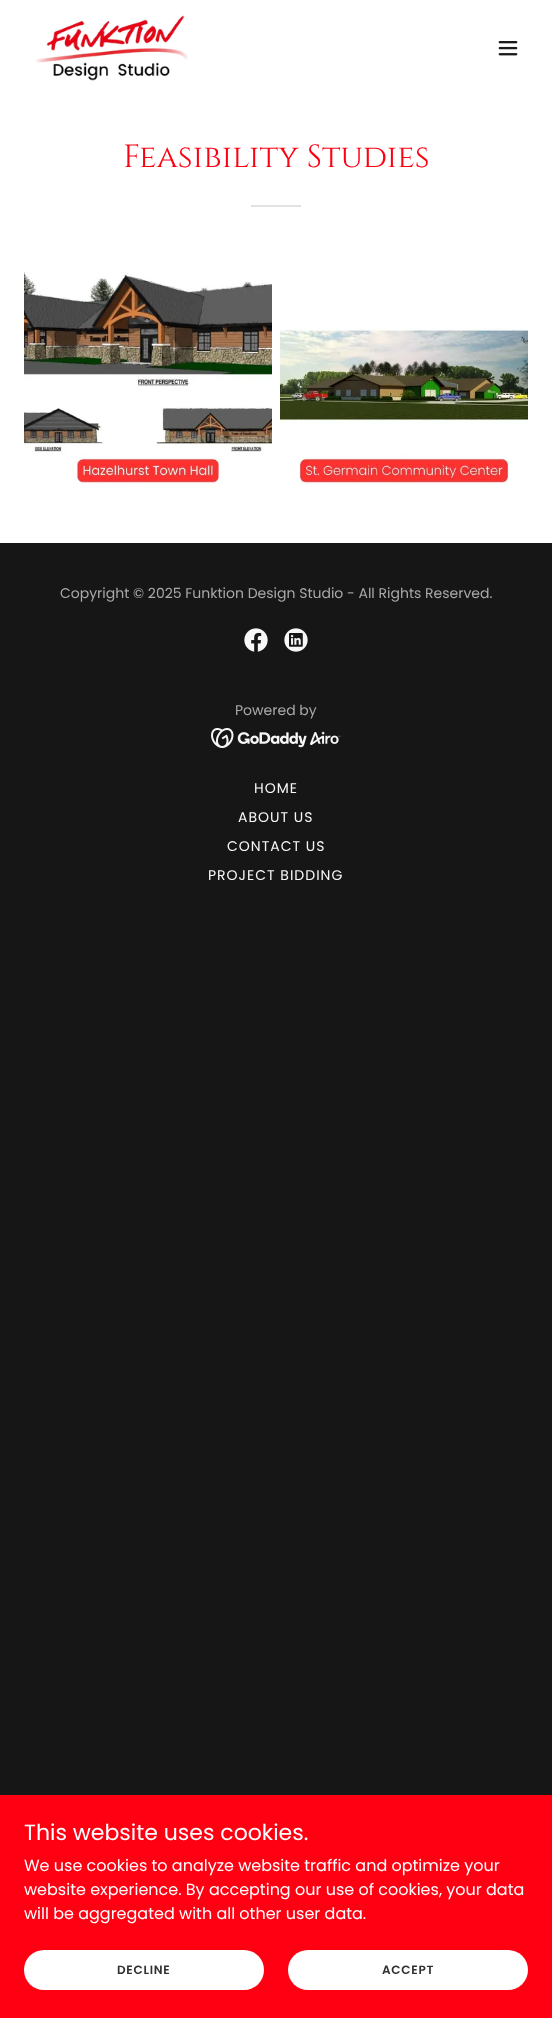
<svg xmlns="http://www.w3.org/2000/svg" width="552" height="2018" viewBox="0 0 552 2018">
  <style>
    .t1 { font: 32px Cinzel; fill: #ff0012; }
    .t2 { font: 14px Poppins; fill: #a9a9a9; }
    .t3 { font: 14px Poppins; letter-spacing: 1px; fill: #f7f7f7; }
    .t4 { font: 22px Poppins; fill: #fff; }
    .t5 { font: 16px Poppins; fill: #fff; }
    .t6 { font: 600 12px Poppins; letter-spacing: 0.75px; fill: #303030; }
  </style>
  <rect width="100%" height="100%" fill="#161616"/>
  <rect x="0" y="0" width="552" height="543" fill="#fff"/>
  <image x="35" y="15" width="153" height="66" href="images/1.png"/>
  <image x="498" y="41" width="20" height="15" href="images/2.png"/>
  <text x="123" y="167" class="t1">Feasibility Studies</text>
  <rect x="251" y="205" width="50" height="2" fill="#e2e2e2"/>
  <image x="24" y="271" width="248" height="216" href="images/3.png"/>
  <image x="280" y="327" width="248" height="159" href="images/4.png"/>
  <text x="60" y="598" class="t2">Copyright © 2025 Funktion Design Studio - All Rights Reserved.</text>
  <image x="244" y="628" width="24" height="24" href="images/5.png"/>
  <image x="284" y="628" width="24" height="24" href="images/6.png"/>
  <text x="235" y="715" class="t2">Powered by</text>
  <image x="211" y="728" width="130" height="20" href="images/7.png"/>
  <text x="254" y="793" class="t3">HOME</text>
  <text x="238" y="822" class="t3">ABOUT US</text>
  <text x="227" y="851" class="t3">CONTACT US</text>
  <text x="208" y="880" class="t3">PROJECT BIDDING</text>
  <rect x="0" y="1795" width="552" height="223" fill="#ff0012"/>
  <text x="24" y="1840" class="t4">This website uses cookies.</text>
  <text x="24" y="1871" class="t5">We use cookies to analyze website traffic and optimize your</text>
  <text x="24" y="1895" class="t5">website experience. By accepting our use of cookies, your data</text>
  <text x="24" y="1919" class="t5">will be aggregated with all other user data.</text>
  <rect x="24" y="1950" width="240" height="40" rx="20" fill="#fff"/>
  <text x="117" y="1974" class="t6">DECLINE</text>
  <rect x="288" y="1950" width="240" height="40" rx="20" fill="#fff"/>
  <text x="382" y="1974" class="t6">ACCEPT</text>
</svg>
